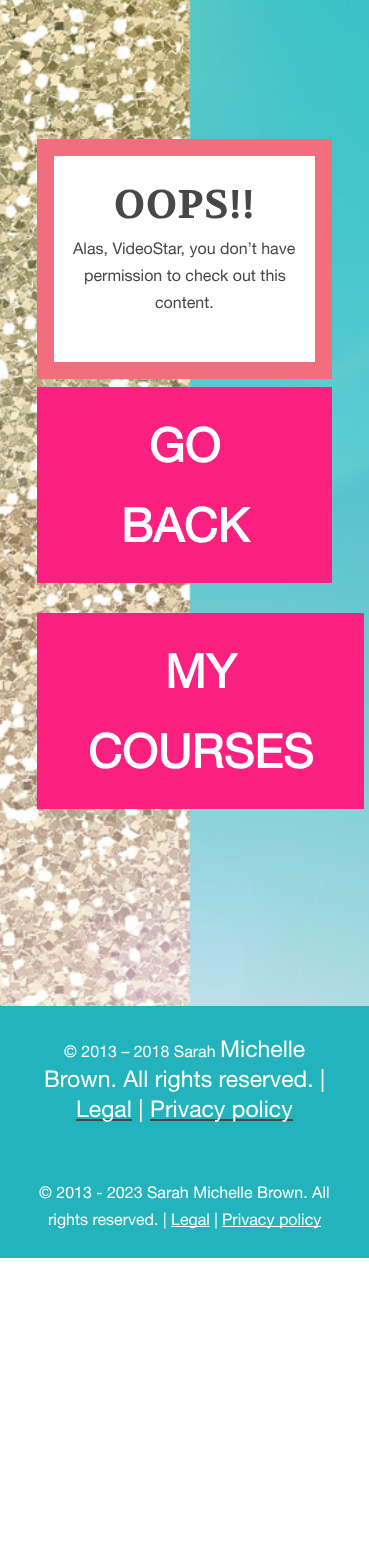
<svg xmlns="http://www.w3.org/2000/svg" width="369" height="1558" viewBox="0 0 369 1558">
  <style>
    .t1 { font: bold 40px Volkhov; letter-spacing: 1px; fill: #474747; }
    .t2 { font: 16px Helvetica Neue; fill: #474747; }
    .t3 { font: bold 47px Helvetica Neue; fill: #fff; }
    .t4 { font: 16px Helvetica Neue; fill: #fff; }
    .t5 { font: 23px Helvetica Neue; fill: #fff; }
  </style>
  <rect width="100%" height="100%" fill="#fff"/>
  <image x="0" y="0" width="369" height="1006" href="images/1.png"/>
  <rect x="45.5" y="147.5" width="278" height="223" fill="#fff" stroke="#f26d7d" stroke-width="17"/>
  <text x="114" y="218" class="t1">OOPS!!</text>
  <text x="73" y="254" class="t2">Alas, VideoStar, you don’t have</text>
  <text x="84" y="281" class="t2">permission to check out this</text>
  <text x="155" y="308" class="t2">content.</text>
  <rect x="37" y="387" width="295" height="196" fill="#fa207f"/>
  <text x="149" y="462" class="t3">GO</text>
  <text x="121" y="542" class="t3">BACK</text>
  <rect x="37" y="613" width="327" height="196" fill="#fa207f"/>
  <text x="165" y="688" class="t3">MY</text>
  <text x="88" y="768" class="t3">COURSES</text>
  <rect x="0" y="1006" width="369" height="252" fill="#22b3bd"/>
  <text x="64" y="1057" class="t4">© 2013 – 2018 Sarah</text>
  <text x="220" y="1057" class="t5">Michelle</text>
  <text x="44" y="1087" class="t5">Brown. All rights reserved. |</text>
  <rect x="76" y="1119" width="56" height="2" fill="#474747"/>
  <text x="76" y="1117" class="t5">Legal |</text>
  <rect x="150" y="1119" width="143" height="2" fill="#474747"/>
  <text x="150" y="1117" class="t5">Privacy policy</text>
  <text x="39" y="1198" class="t4">© 2013 - 2023 Sarah Michelle Brown. All</text>
  <text x="48" y="1225" class="t4">rights reserved. |</text>
  <rect x="171" y="1226" width="39" height="1" fill="#fff"/>
  <text x="171" y="1225" class="t4">Legal |</text>
  <rect x="222" y="1226" width="99" height="1" fill="#fff"/>
  <text x="222" y="1225" class="t4">Privacy policy</text>
</svg>
